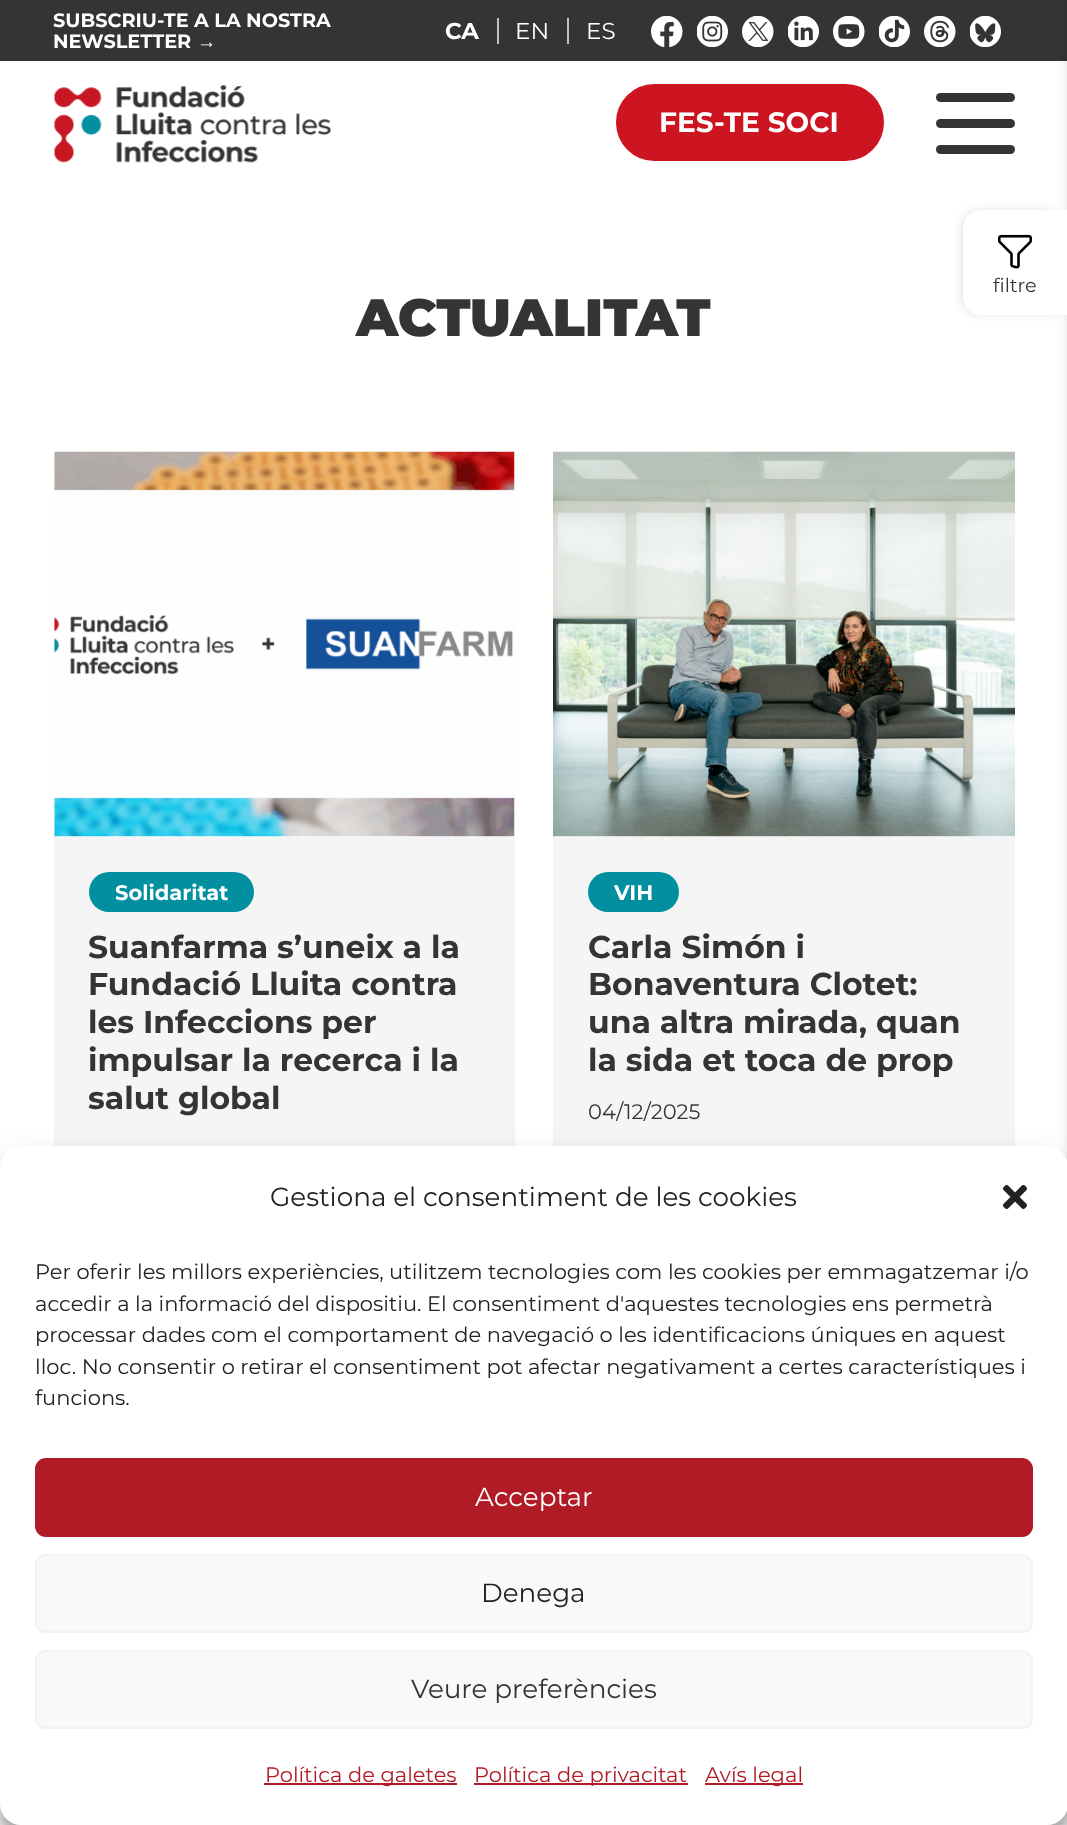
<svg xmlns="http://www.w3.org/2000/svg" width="1067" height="1825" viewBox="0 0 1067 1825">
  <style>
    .t1 { font: bold 19.25px Montserrat; fill: #fff; }
    .t2 { font: bold 19.25px Liberation Sans; fill: #fff; }
    .t3 { font: bold 23px Montserrat; fill: #fff; }
    .t4 { font: 100 23px Montserrat; fill: #fff; }
    .t5 { font: bold 28px Montserrat; fill: #fff; }
    .t6 { font: 100 19.25px Montserrat; fill: #343434; }
    .t7 { font: 900 52.5px Montserrat; fill: #343434; }
    .t8 { font: bold 21px Montserrat; fill: #fff; }
    .t9 { font: bold 31.5px Montserrat; fill: #343434; }
    .t10 { font: 100 21px Montserrat; fill: #343434; }
    .t11 { font: 100 26.25px Montserrat; fill: #222; }
    .t12 { font: 100 21px Montserrat; fill: #222; }
    .t13 { font: 100 26.25px Montserrat; fill: #fff; }
    .t14 { font: 100 26.25px Montserrat; fill: #343434; }
    .t15 { font: 100 21px Montserrat; fill: #b01b26; }
  </style>
  <rect width="100%" height="100%" fill="#fff"/>
  <rect x="0" y="0" width="1067" height="61" fill="#343434"/>
  <text x="53" y="27" class="t1">SUBSCRIU-TE A LA NOSTRA</text>
  <text x="53" y="48" class="t1">NEWSLETTER</text>
  <text x="197" y="48" class="t2">→</text>
  <text x="445" y="39" class="t3">CA</text>
  <rect x="497" y="18" width="2" height="26" fill="#c2c2c2"/>
  <text x="515" y="39" class="t4">EN</text>
  <rect x="567" y="18" width="2" height="26" fill="#c2c2c2"/>
  <text x="586" y="39" class="t4">ES</text>
  <image x="651" y="16" width="32" height="31" href="images/1.png"/>
  <image x="697" y="16" width="31" height="31" href="images/2.png"/>
  <image x="742" y="16" width="32" height="31" href="images/3.png"/>
  <image x="788" y="16" width="31" height="31" href="images/4.png"/>
  <image x="833" y="16" width="32" height="31" href="images/5.png"/>
  <image x="879" y="16" width="31" height="31" href="images/6.png"/>
  <image x="924" y="16" width="32" height="31" href="images/7.png"/>
  <image x="970" y="16" width="31" height="31" href="images/8.png"/>
  <image x="54" y="85" width="277" height="78" href="images/9.png"/>
  <rect x="618.5" y="86.5" width="263" height="72" rx="36" fill="#cd1421" stroke="#cd1421" stroke-width="5"/>
  <text x="659" y="132" class="t5">FES-TE SOCI</text>
  <rect x="936" y="93" width="79" height="9" rx="4.5" fill="#343434"/>
  <rect x="936" y="119" width="79" height="9" rx="4.5" fill="#343434"/>
  <rect x="936" y="145" width="79" height="9" rx="4.5" fill="#343434"/>
  <rect x="1066" y="0" width="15" height="1825" fill="#0000001a" filter="blur(4.5px)"/>
  <rect x="961" y="210" width="105" height="105" rx="18" fill="#0000001a" filter="blur(4.5px)"/>
  <path d="M981 210H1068V315H981C971 315 963 307 963 297V228C963 218 971 210 981 210Z" fill="#fff"/>
  <image x="997" y="234" width="36" height="35" href="images/10.png"/>
  <text x="993" y="292" class="t6">filtre</text>
  <text x="356" y="336" class="t7">ACTUALITAT</text>
  <image x="54" y="451" width="461" height="386" href="images/11.png"/>
  <rect x="54" y="837" width="461" height="309" fill="#f5f5f5"/>
  <rect x="89" y="872" width="165" height="40" rx="20" fill="#0290a1"/>
  <text x="115" y="900" class="t8">Solidaritat</text>
  <text x="88" y="958" class="t9">Suanfarma s’uneix a la</text>
  <text x="88" y="995" class="t9">Fundació Lluita contra</text>
  <text x="88" y="1033" class="t9">les Infeccions per</text>
  <text x="88" y="1071" class="t9">impulsar la recerca i la</text>
  <text x="88" y="1109" class="t9">salut global</text>
  <image x="553" y="451" width="462" height="386" href="images/12.png"/>
  <rect x="553" y="837" width="462" height="309" fill="#f5f5f5"/>
  <rect x="588" y="872" width="91" height="40" rx="20" fill="#0290a1"/>
  <text x="614" y="900" class="t8">VIH</text>
  <text x="588" y="958" class="t9">Carla Simón i</text>
  <text x="588" y="995" class="t9">Bonaventura Clotet:</text>
  <text x="588" y="1033" class="t9">una altra mirada, quan</text>
  <text x="588" y="1071" class="t9">la sida et toca de prop</text>
  <text x="588" y="1119" class="t10">04/12/2025</text>
  <rect x="0" y="1157" width="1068" height="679" rx="21" fill="#0000003b" filter="blur(5px)"/>
  <rect x="0" y="1164" width="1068" height="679" rx="21" fill="#00000030" filter="blur(17.5px)"/>
  <rect x="0" y="1146" width="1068" height="679" rx="21" fill="#fff"/>
  <text x="270" y="1206" class="t11">Gestiona el consentiment de les cookies</text>
  <image x="1003" y="1185" width="24" height="24" href="images/13.png"/>
  <text x="35" y="1279" class="t12">Per oferir les millors experiències, utilitzem tecnologies com les cookies per emmagatzemar i/o</text>
  <text x="35" y="1311" class="t12">accedir a la informació del dispositiu. El consentiment d'aquestes tecnologies ens permetrà</text>
  <text x="35" y="1342" class="t12">processar dades com el comportament de navegació o les identificacions úniques en aquest</text>
  <text x="35" y="1374" class="t12">lloc. No consentir o retirar el consentiment pot afectar negativament a certes característiques i</text>
  <text x="35" y="1405" class="t12">funcions.</text>
  <rect x="36" y="1459" width="996" height="77" rx="10" fill="#b01b26" stroke="#b01b26" stroke-width="2"/>
  <text x="475" y="1506" class="t13">Acceptar</text>
  <rect x="36" y="1555" width="996" height="77" rx="10" fill="#f9f9f9" stroke="#f2f2f2" stroke-width="2"/>
  <text x="481" y="1602" class="t11">Denega</text>
  <rect x="36" y="1651" width="996" height="77" rx="10" fill="#f9f9f9" stroke="#f2f2f2" stroke-width="2"/>
  <text x="411" y="1698" class="t14">Veure preferències</text>
  <rect x="264" y="1783" width="193" height="2" fill="#b01b26"/>
  <text x="265" y="1782" class="t15">Política de galetes</text>
  <rect x="474" y="1783" width="214" height="2" fill="#b01b26"/>
  <text x="474" y="1782" class="t15">Política de privacitat</text>
  <rect x="705" y="1783" width="98" height="2" fill="#b01b26"/>
  <text x="705" y="1782" class="t15">Avís legal</text>
</svg>
